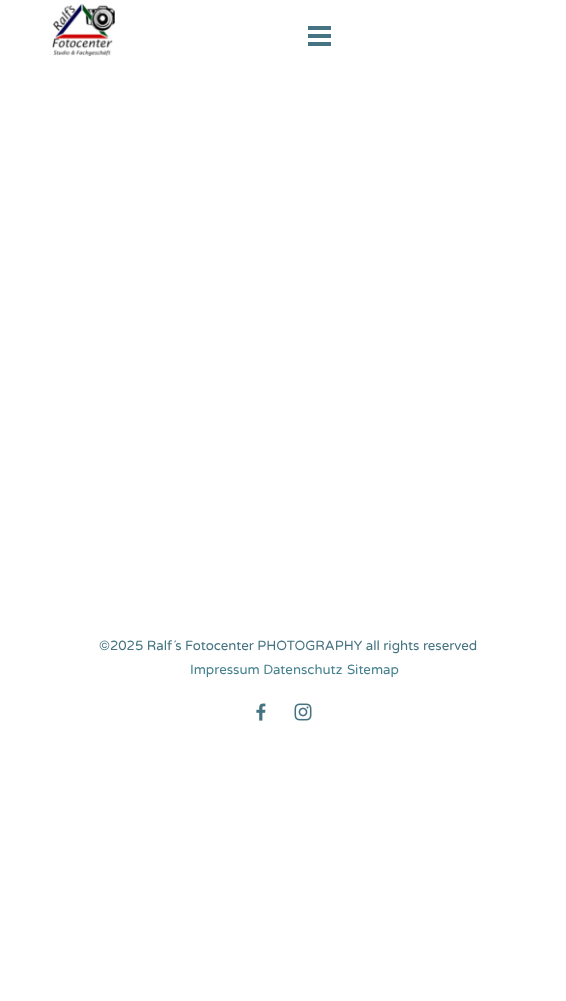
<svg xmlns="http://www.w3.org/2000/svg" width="566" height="1001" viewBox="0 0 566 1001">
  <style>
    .t1 { font: 13.3px Varela Round; fill: #457381; }
    .t2 { font: 13.3px Varela Round; fill: #45818e; }
  </style>
  <rect width="100%" height="100%" fill="#fff"/>
  <image x="52" y="3" width="63" height="53" href="images/1.png"/>
  <rect x="308" y="26" width="23" height="4" fill="#457381"/>
  <rect x="308" y="34" width="23" height="4" fill="#457381"/>
  <rect x="308" y="42" width="23" height="4" fill="#457381"/>
  <text x="99" y="650" class="t1">©2025 Ralf´s Fotocenter PHOTOGRAPHY all rights reserved</text>
  <text x="190" y="674" class="t2">Impressum Datenschutz</text>
  <text x="347" y="674" class="t2">Sitemap</text>
  <image x="256" y="703" width="10" height="18" href="images/2.png"/>
  <image x="294" y="703" width="18" height="18" href="images/3.png"/>
</svg>
